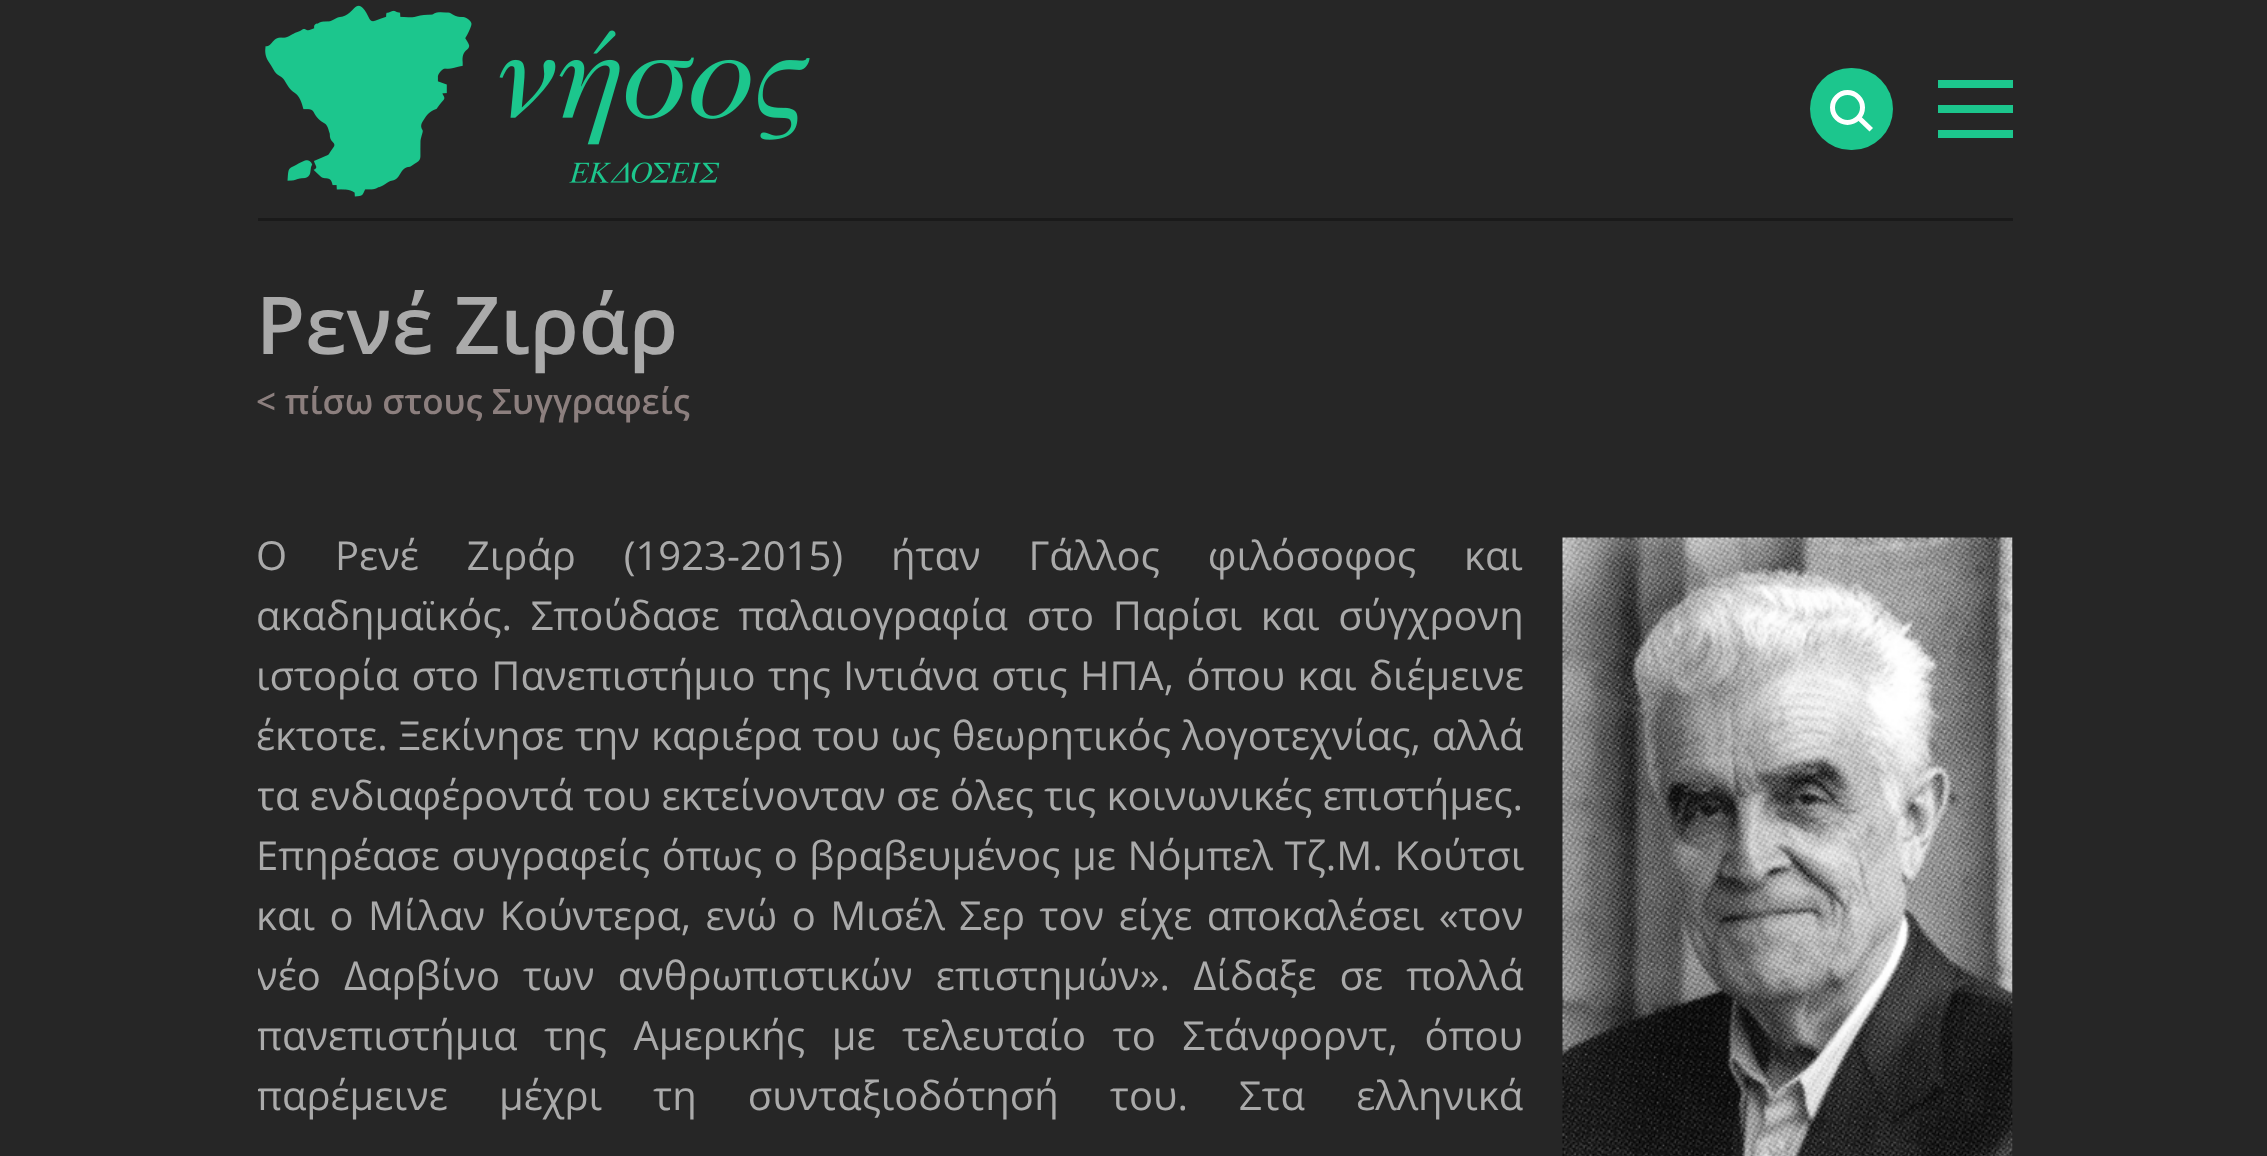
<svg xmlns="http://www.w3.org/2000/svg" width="2267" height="1156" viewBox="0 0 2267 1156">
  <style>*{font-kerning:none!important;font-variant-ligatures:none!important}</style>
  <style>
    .t1 { font: 600 80px Open Sans; fill: #aaa; }
    .t2 { font: 600 35px Open Sans; fill: #8c7f7e; }
    .t3 { font: 40px Open Sans; fill: #aaa; }
  </style>
  <defs>
    <clipPath id="clip1"><rect x="258" y="485" width="1755" height="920"/></clipPath>
  </defs>
  <rect width="100%" height="100%" fill="#262626"/>
  <rect x="258" y="218" width="1755" height="3" fill="#1a1a1a"/>
  <image x="265" y="5" width="545" height="192" href="images/1.png"/>
  <rect x="1810" y="68" width="83" height="82" rx="41" fill="#1cc68d"/>
  <path d="M1860.5 116L1873 128L1869.5 131.5L1857 119.5Z" fill="#fff"/>
  <circle cx="1847.5" cy="107.5" r="15" fill="none" stroke="#fff" stroke-width="5"/>
  <rect x="1938" y="130" width="75" height="8" fill="#1cc68d"/>
  <rect x="1938" y="105" width="75" height="8" fill="#1cc68d"/>
  <rect x="1938" y="80" width="75" height="8" fill="#1cc68d"/>
  <text x="256" y="354" class="t1">Ρενέ Ζιράρ</text>
  <text x="256" y="414" class="t2">&lt; πίσω στους Συγγραφείς</text>
  <text x="256" y="570" word-spacing="37.5" class="t3">Ο Ρενέ Ζιράρ (1923-2015) ήταν Γάλλος φιλόσοφος και</text>
  <image x="1562" y="537" width="451" height="619" href="images/2.png"/>
  <text x="256" y="630" word-spacing="8.25" class="t3">ακαδημαϊκός. Σπούδασε παλαιογραφία στο Παρίσι και σύγχρονη</text>
  <text x="256" y="690" word-spacing="2" class="t3">ιστορία στο Πανεπιστήμιο της Ιντιάνα στις ΗΠΑ, όπου και διέμεινε</text>
  <text x="256" y="750" word-spacing="0.5" class="t3">έκτοτε. Ξεκίνησε την καριέρα του ως θεωρητικός λογοτεχνίας, αλλά</text>
  <g clip-path="url(#clip1)">
    <text x="256" y="810" class="t3">τα ενδιαφέροντά του εκτείνονταν σε όλες τις κοινωνικές επιστήμες.</text>
  </g>
  <text x="256" y="870" word-spacing="1.25" class="t3">Επηρέασε συγραφείς όπως ο βραβευμένος με Νόμπελ Τζ.Μ. Κούτσι</text>
  <text x="256" y="930" word-spacing="4.1" class="t3">και ο Μίλαν Κούντερα, ενώ ο Μισέλ Σερ τον είχε αποκαλέσει «τον</text>
  <g clip-path="url(#clip1)">
    <text x="256" y="990" word-spacing="12.75" class="t3">νέο Δαρβίνο των ανθρωπιστικών επιστημών». Δίδαξε σε πολλά</text>
    <text x="256" y="1050" word-spacing="16.25" class="t3">πανεπιστήμια της Αμερικής με τελευταίο το Στάνφορντ, όπου</text>
    <text x="256" y="1110" word-spacing="40.75" class="t3">παρέμεινε μέχρι τη συνταξιοδότησή του. Στα ελληνικά</text>
  </g>
</svg>
